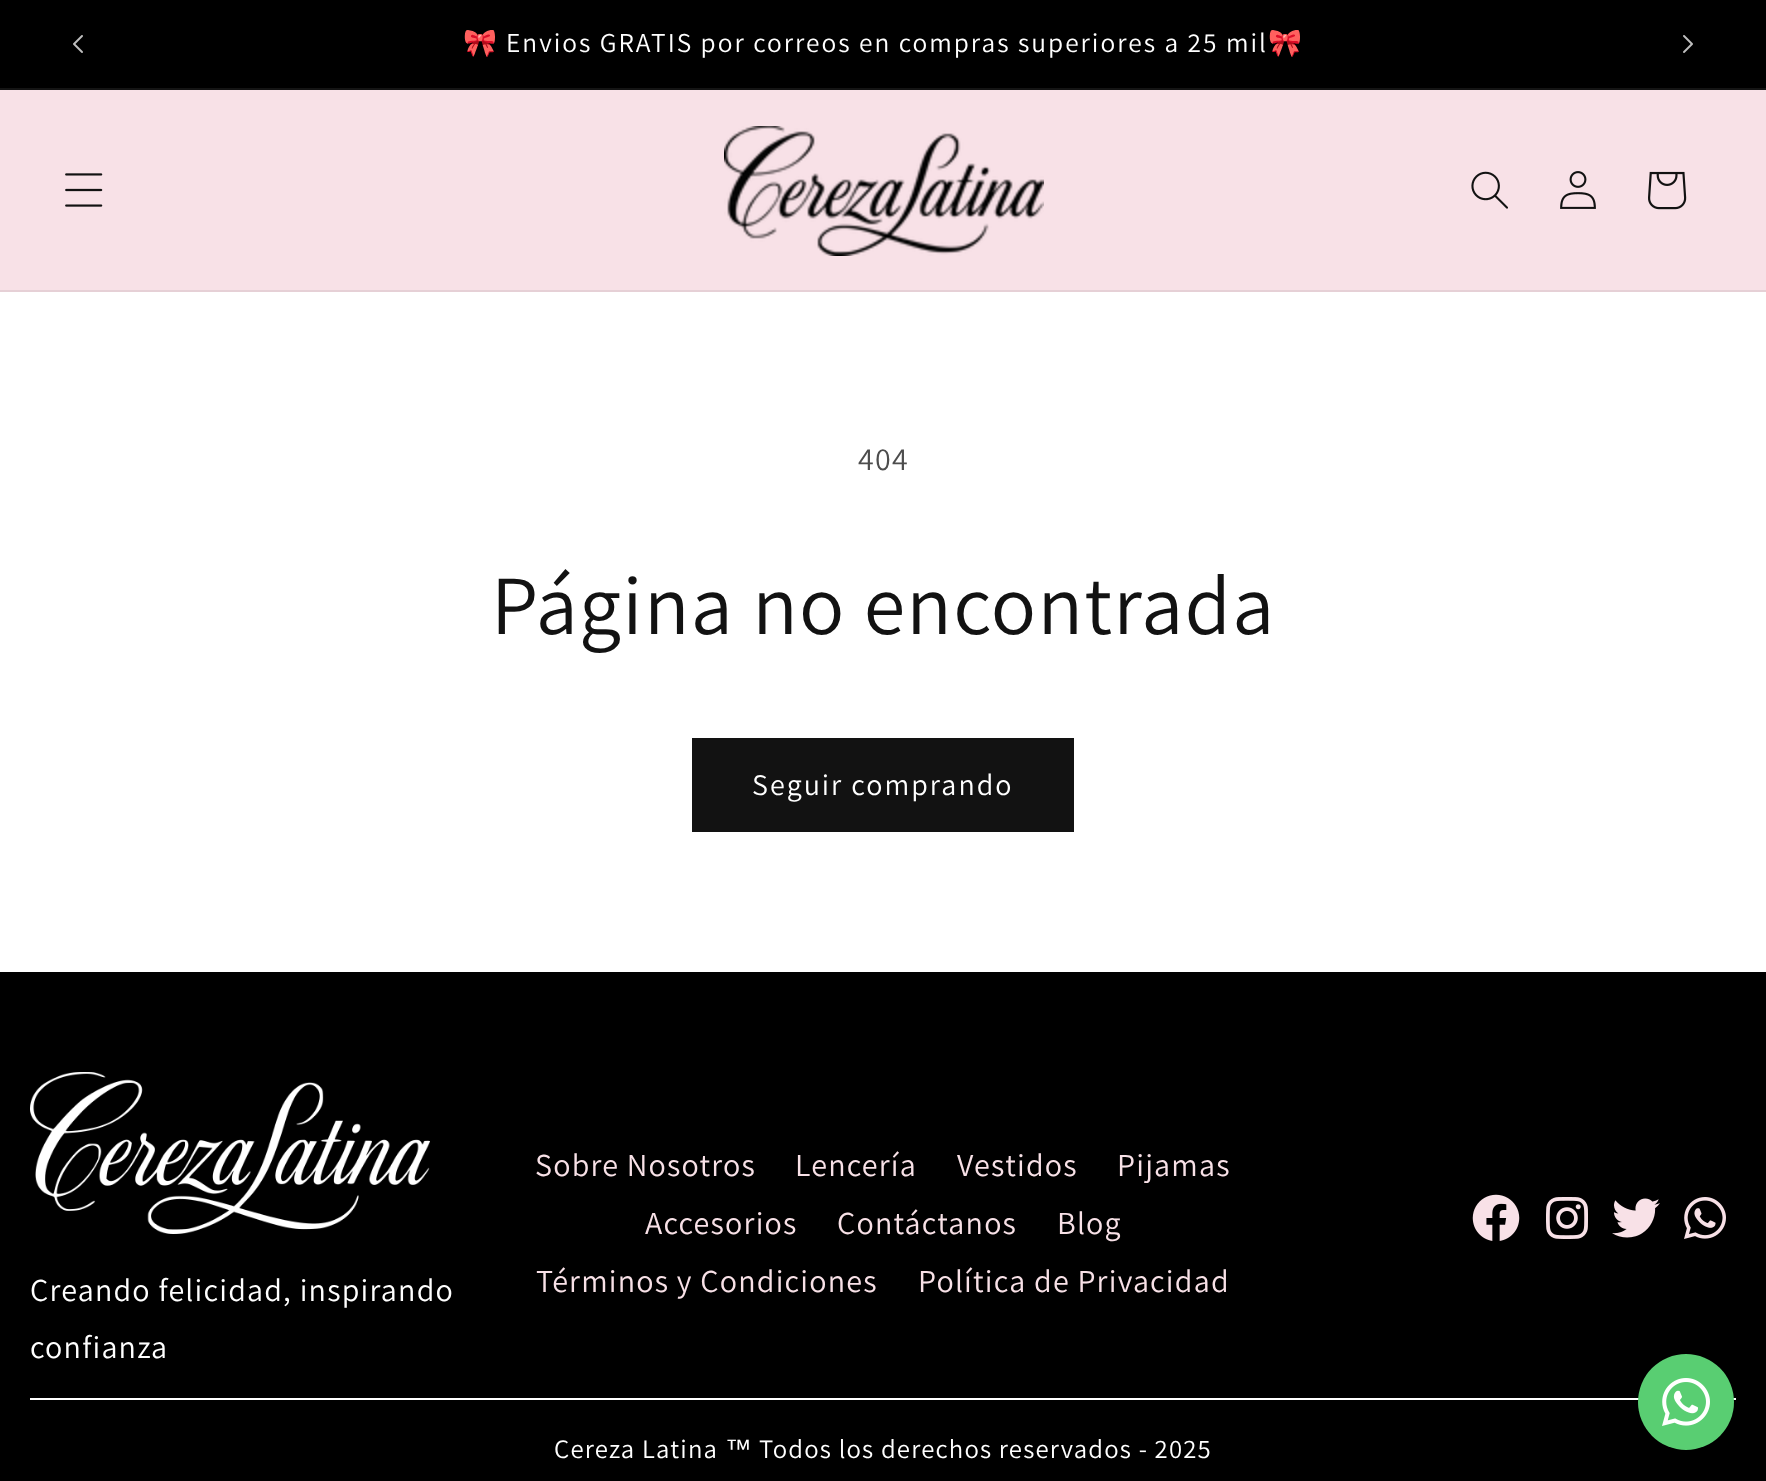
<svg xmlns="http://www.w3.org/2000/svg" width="1766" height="1481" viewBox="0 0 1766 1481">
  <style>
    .t1 { font: 27.3px Noto Color Emoji; letter-spacing: 2px; fill: #fff; }
    .t2 { font: 27.3px Assistant; letter-spacing: 2px; fill: #fff; }
    .t3 { font: 32px Assistant; letter-spacing: 1.2px; fill: #4d4d4d; }
    .t4 { font: 84px Assistant; letter-spacing: 1.25px; fill: #121212; }
    .t5 { font: 30px Assistant; letter-spacing: 2px; fill: #fff; }
    .t6 { font: 32px Assistant; letter-spacing: 1.2px; fill: #f8e1e7; }
    .t7 { font: 32px Assistant; letter-spacing: 1.2px; fill: #fff; }
    .t8 { font: 26.7px Assistant; letter-spacing: 1.2px; fill: #fff; }
    .t9 { font: 26.7px Liberation Sans; letter-spacing: 1.2px; fill: #fff; }
  </style>
  <rect width="100%" height="100%" fill="#fff"/>
  <rect x="0" y="0" width="1766" height="88" fill="#000"/>
  <rect x="0" y="88" width="1766" height="2" fill="#141414"/>
  <image x="73" y="35" width="10" height="18" href="images/1.png"/>
  <text x="463" y="52" class="t1">🎀</text>
  <text x="506" y="52" class="t2">Envios GRATIS por correos en compras superiores a 25 mil</text>
  <text x="1268" y="52" class="t1">🎀</text>
  <image x="1683" y="35" width="10" height="18" href="images/2.png"/>
  <rect x="0" y="90" width="1766" height="200" fill="#f8e1e7"/>
  <rect x="0" y="290" width="1766" height="2" fill="#e6d0d6"/>
  <image x="65" y="173" width="38" height="34" href="images/3.png"/>
  <image x="724" y="126" width="320" height="130" href="images/4.png"/>
  <image x="1471" y="171" width="37" height="38" href="images/5.png"/>
  <image x="1560" y="171" width="36" height="38" href="images/6.png"/>
  <image x="1648" y="171" width="39" height="39" href="images/7.png"/>
  <text x="858" y="470" class="t3">404</text>
  <text x="491" y="634" class="t4">Página no encontrada</text>
  <rect x="692" y="738" width="382" height="94" fill="#121212"/>
  <text x="752" y="795" class="t5">Seguir comprando</text>
  <rect x="0" y="972" width="1766" height="509" fill="#000"/>
  <text x="535" y="1176" class="t6">Sobre Nosotros</text>
  <text x="795" y="1176" class="t6">Lencería</text>
  <text x="957" y="1176" class="t6">Vestidos</text>
  <text x="1117" y="1176" class="t6">Pijamas</text>
  <text x="645" y="1234" class="t6">Accesorios</text>
  <text x="837" y="1234" class="t6">Contáctanos</text>
  <text x="1057" y="1234" class="t6">Blog</text>
  <text x="536" y="1292" class="t6">Términos y Condiciones</text>
  <text x="918" y="1292" class="t6">Política de Privacidad</text>
  <image x="1472" y="1194" width="48" height="47" href="images/8.png"/>
  <image x="1546" y="1197" width="42" height="42" href="images/9.png"/>
  <image x="1612" y="1198" width="48" height="40" href="images/10.png"/>
  <image x="1684" y="1197" width="42" height="42" href="images/11.png"/>
  <image x="30" y="1072" width="400" height="162" href="images/12.png"/>
  <text x="30" y="1301" class="t7">Creando felicidad, inspirando</text>
  <text x="30" y="1358" class="t7">confianza</text>
  <rect x="30" y="1398" width="1706" height="2" fill="#fff"/>
  <text x="554" y="1458" class="t8">Cereza Latina</text>
  <text x="725" y="1458" class="t9">™</text>
  <text x="759" y="1458" class="t8">Todos los derechos reservados - 2025</text>
  <circle cx="1686" cy="1402" r="48" fill="#59ce72"/>
  <image x="1662" y="1378" width="48" height="48" href="images/13.png"/>
</svg>
